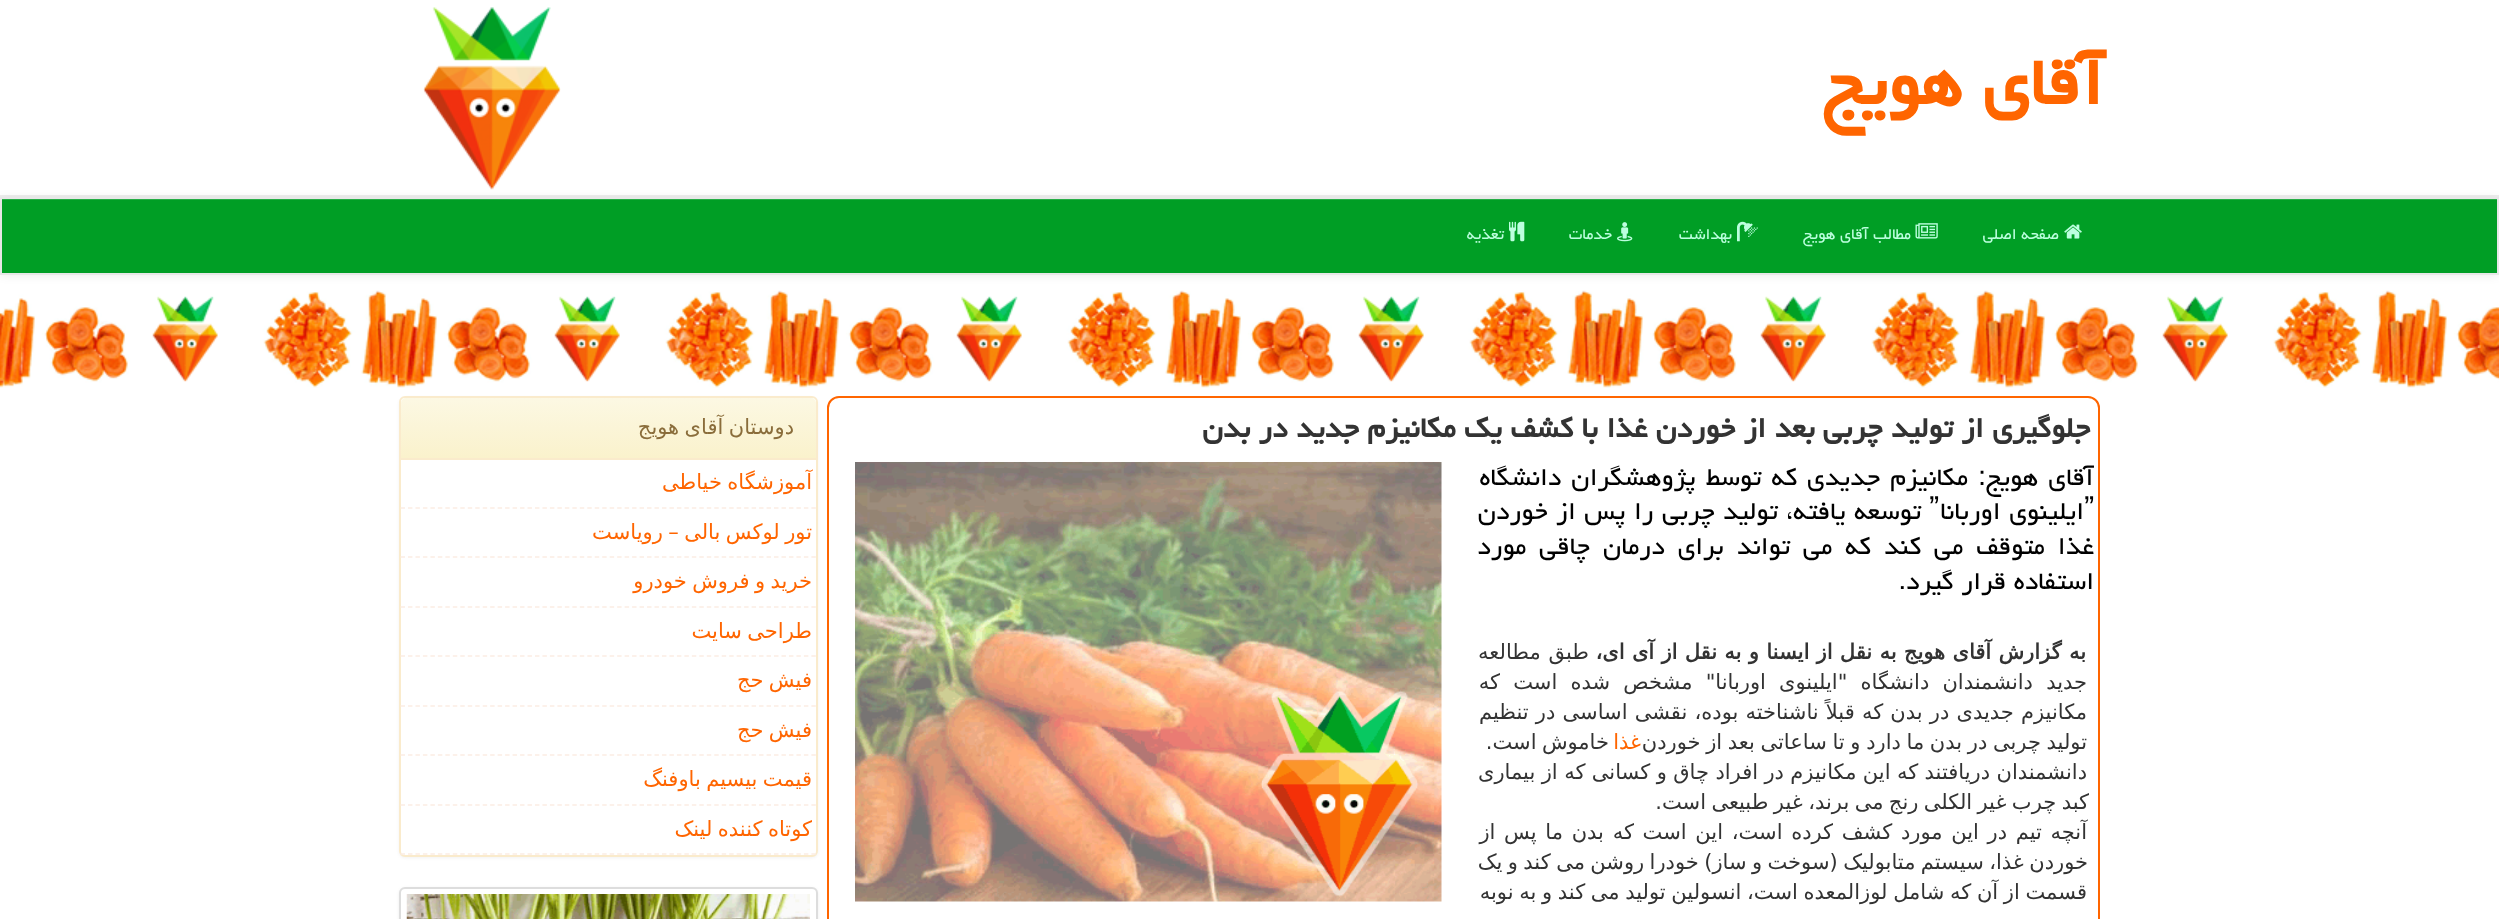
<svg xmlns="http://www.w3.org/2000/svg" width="2499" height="919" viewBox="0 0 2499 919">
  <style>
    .t1 { font: bold 84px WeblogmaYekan; direction: rtl; fill: #ff6500; }
    .t2 { font: 19.5px WeblogmaYekan; direction: rtl; fill: #bcffdf; }
    .t3 { font: bold 35.7px WeblogmaYekan; direction: rtl; fill: #333; }
    .t4 { font: 31.5px WeblogmaYekan; direction: rtl; fill: #000; }
    .t5 { font: 31.5px Liberation Sans; fill: #000; }
    .t6 { font: bold 21px DejaVu Sans; direction: rtl; fill: #333; }
    .t7 { font: 21px DejaVu Sans; direction: rtl; fill: #333; }
    .t8 { font: 21px DejaVu Sans; direction: rtl; fill: #ff6500; }
    .t9 { font: 21px DejaVu Sans; direction: rtl; fill: #8a6d3b; }
  </style>
  <defs>
    <linearGradient id="g1" gradientUnits="userSpaceOnUse" x1="608" y1="398" x2="608" y2="458"><stop offset="0" stop-color="#fcf8e3"/><stop offset="1" stop-color="#faf2cc"/></linearGradient>
  </defs>
  <rect width="100%" height="100%" fill="#fff"/>
  <rect x="0" y="195" width="2499" height="2" fill="#eee"/>
  <text x="2104" y="104" class="t1">آقای هویج</text>
  <image x="423" y="7" width="138" height="183" href="images/1.png"/>
  <rect x="0" y="198" width="2499" height="78" fill="#00000012" filter="blur(4px)"/>
  <rect x="2" y="200" width="2495" height="73" fill="#009e25"/>
  <rect x="2" y="199" width="2496" height="1" fill="#26ad46"/>
  <rect x="1" y="198" width="2497" height="76" fill="none" stroke="#e7e7e7" stroke-width="2"/>
  <image x="2064" y="224" width="18" height="15" href="images/2.png"/>
  <text x="2059" y="239" class="t2">صفحه اصلی</text>
  <image x="1915" y="223" width="23" height="16" href="images/3.png"/>
  <text x="1911" y="239" class="t2">مطالب آقای هویج</text>
  <image x="1737" y="221" width="21" height="21" href="images/4.png"/>
  <text x="1732" y="239" class="t2">بهداشت</text>
  <image x="1617" y="222" width="16" height="20" href="images/5.png"/>
  <text x="1612" y="239" class="t2">خدمات</text>
  <image x="1509" y="221" width="16" height="21" href="images/6.png"/>
  <text x="1504" y="239" class="t2">تغذیه</text>
  <image x="0" y="290" width="2499" height="98" href="images/7.png"/>
  <rect x="828" y="397" width="1271" height="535" rx="11" fill="none" stroke="#ff6500" stroke-width="2"/>
  <text x="2090" y="437" class="t3">جلوگیری از تولید چربی بعد از خوردن غذا با كشف یك مكانیزم جدید در بدن</text>
  <text x="2094" y="485" word-spacing="2.5" class="t4">آقای هویج: مكانیزم جدیدی كه توسط پژوهشگران دانشگاه</text>
  <image x="855" y="462" width="587" height="440" href="images/8.png"/>
  <text x="2084" y="519" class="t5">ˮ</text>
  <text x="1929" y="519" class="t5">ˮ</text>
  <text x="2084" y="519" word-spacing="1" class="t4">ایلینوی اوربانا</text>
  <text x="1921" y="519" word-spacing="1" class="t4">توسعه یافته، تولید چربی را پس از خوردن</text>
  <text x="2094" y="554" word-spacing="5.5" class="t4">غذا متوقف می كند كه می تواند برای درمان چاقی مورد</text>
  <text x="2094" y="589" class="t4">استفاده قرار گیرد.</text>
  <text x="2086" y="659" word-spacing="0.6" class="t6">به گزارش آقای هویج به نقل از ایسنا و به نقل از آی ای،</text>
  <text x="1589" y="659" word-spacing="1" class="t7">طبق مطالعه</text>
  <text x="2087" y="689" word-spacing="6.5" class="t7">جدید دانشمندان دانشگاه "ایلینوی اوربانا" مشخص شده است که</text>
  <text x="2087" y="719" word-spacing="0.5" class="t7">مکانیزم جدیدی در بدن که قبلاً ناشناخته بوده، نقشی اساسی در تنظیم</text>
  <text x="2087" y="749" word-spacing="-1" class="t7">تولید چربی در بدن ما دارد و تا ساعاتی بعد از خوردن</text>
  <text x="1641" y="749" class="t8">غذا</text>
  <text x="1609" y="749" word-spacing="-1.25" class="t7">خاموش است.</text>
  <text x="2087" y="779" word-spacing="-0.25" class="t7">دانشمندان دریافتند که این مکانیزم در افراد چاق و کسانی که از بیماری</text>
  <text x="2089" y="809" word-spacing="-1.25" class="t7">کبد چرب غیر الکلی رنج می برند، غیر طبیعی است.</text>
  <text x="2087" y="839" word-spacing="2" class="t7">آنچه تیم در این مورد کشف کرده است، این است که بدن ما پس از</text>
  <text x="2088" y="869" word-spacing="-1.25" class="t7">خوردن غذا، سیستم متابولیک (سوخت و ساز) خودرا روشن می کند و یک</text>
  <text x="2087" y="899" word-spacing="-1" class="t7">قسمت از آن که شامل لوزالمعده است، انسولین تولید می کند و به نوبه</text>
  <rect x="399" y="398" width="419" height="460" rx="6" fill="#0000000d" filter="blur(1.5px)"/>
  <rect x="400" y="397" width="417" height="459" rx="5" fill="#fff" stroke="#faebcc" stroke-width="2"/>
  <path d="M406 398H811C814 398 816 400 816 403V458H401V403C401 400 403 398 406 398Z" fill="url(#g1)"/>
  <rect x="401" y="458" width="415" height="2" fill="#faebcc"/>
  <text x="794" y="434" word-spacing="-1.25" class="t9">دوستان آقای هویج</text>
  <path d="M400.5 508H816" fill="none" stroke="#fcede4" stroke-width="1.5" stroke-dasharray="4.5 2.97"/>
  <text x="812" y="489" word-spacing="-1.25" class="t8">آموزشگاه خیاطی</text>
  <path d="M400.5 557H816" fill="none" stroke="#fcede4" stroke-width="1.5" stroke-dasharray="4.5 2.97"/>
  <text x="812" y="539" word-spacing="-1.25" class="t8">تور لوکس بالی – رویاست</text>
  <path d="M400.5 607H816" fill="none" stroke="#fcede4" stroke-width="1.5" stroke-dasharray="4.5 2.97"/>
  <text x="812" y="588" word-spacing="-1.25" class="t8">خرید و فروش خودرو</text>
  <path d="M400.5 656H816" fill="none" stroke="#fcede4" stroke-width="1.5" stroke-dasharray="4.5 2.97"/>
  <text x="812" y="638" word-spacing="-1.25" class="t8">طراحی سایت</text>
  <path d="M400.5 706H816" fill="none" stroke="#fcede4" stroke-width="1.5" stroke-dasharray="4.5 2.97"/>
  <text x="812" y="687" word-spacing="-1.25" class="t8">فیش حج</text>
  <path d="M400.5 755H816" fill="none" stroke="#fcede4" stroke-width="1.5" stroke-dasharray="4.5 2.97"/>
  <text x="812" y="737" word-spacing="-1.25" class="t8">فیش حج</text>
  <path d="M400.5 805H816" fill="none" stroke="#fcede4" stroke-width="1.5" stroke-dasharray="4.5 2.97"/>
  <text x="812" y="786" word-spacing="-1.25" class="t8">قیمت بیسیم باوفنگ</text>
  <path d="M400.5 854H816" fill="none" stroke="#fcede4" stroke-width="1.5" stroke-dasharray="4.5 2.97"/>
  <text x="812" y="836" word-spacing="-1.25" class="t8">کوتاه کننده لینک</text>
  <rect x="399" y="888" width="419" height="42" rx="6" fill="#00000012" filter="blur(1.5px)"/>
  <rect x="400" y="888" width="417" height="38" rx="5" fill="#fff" stroke="#ddd" stroke-width="2"/>
  <image x="406" y="894" width="404" height="25" href="images/9.png"/>
</svg>
